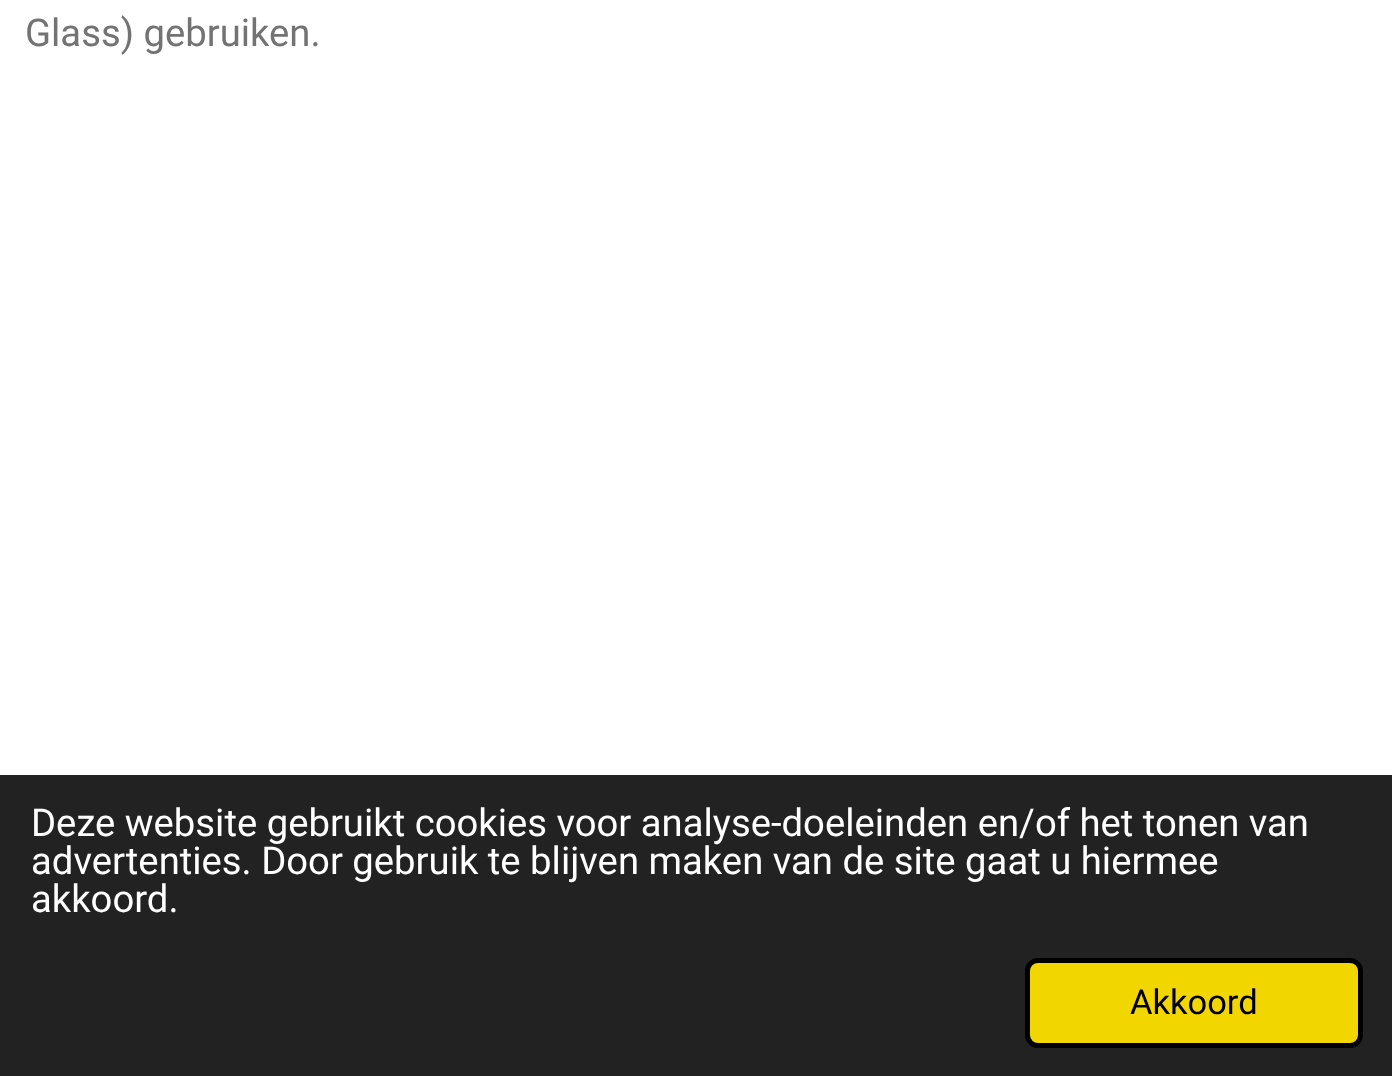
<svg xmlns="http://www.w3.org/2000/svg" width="1392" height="1076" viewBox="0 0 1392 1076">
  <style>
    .t1 { font: 38.25px Roboto; fill: #737373; }
    .t2 { font: 38.25px Roboto; fill: #fff; }
    .t3 { font: 34.5px Roboto; fill: #000; }
  </style>
  <rect width="100%" height="100%" fill="#fff"/>
  <text x="25" y="46" class="t1">Glass) gebruiken.</text>
  <rect x="0" y="775" width="1392" height="301" fill="#222"/>
  <text x="31" y="836" class="t2">Deze website gebruikt cookies voor analyse-doeleinden en/of het tonen van</text>
  <text x="31" y="874" class="t2">advertenties. Door gebruik te blijven maken van de site gaat u hiermee</text>
  <text x="31" y="912" class="t2">akkoord.</text>
  <rect x="1027.5" y="960.5" width="333" height="85" rx="10.5" fill="#f1d600" stroke="#000" stroke-width="5"/>
  <text x="1130" y="1014" class="t3">Akkoord</text>
</svg>
